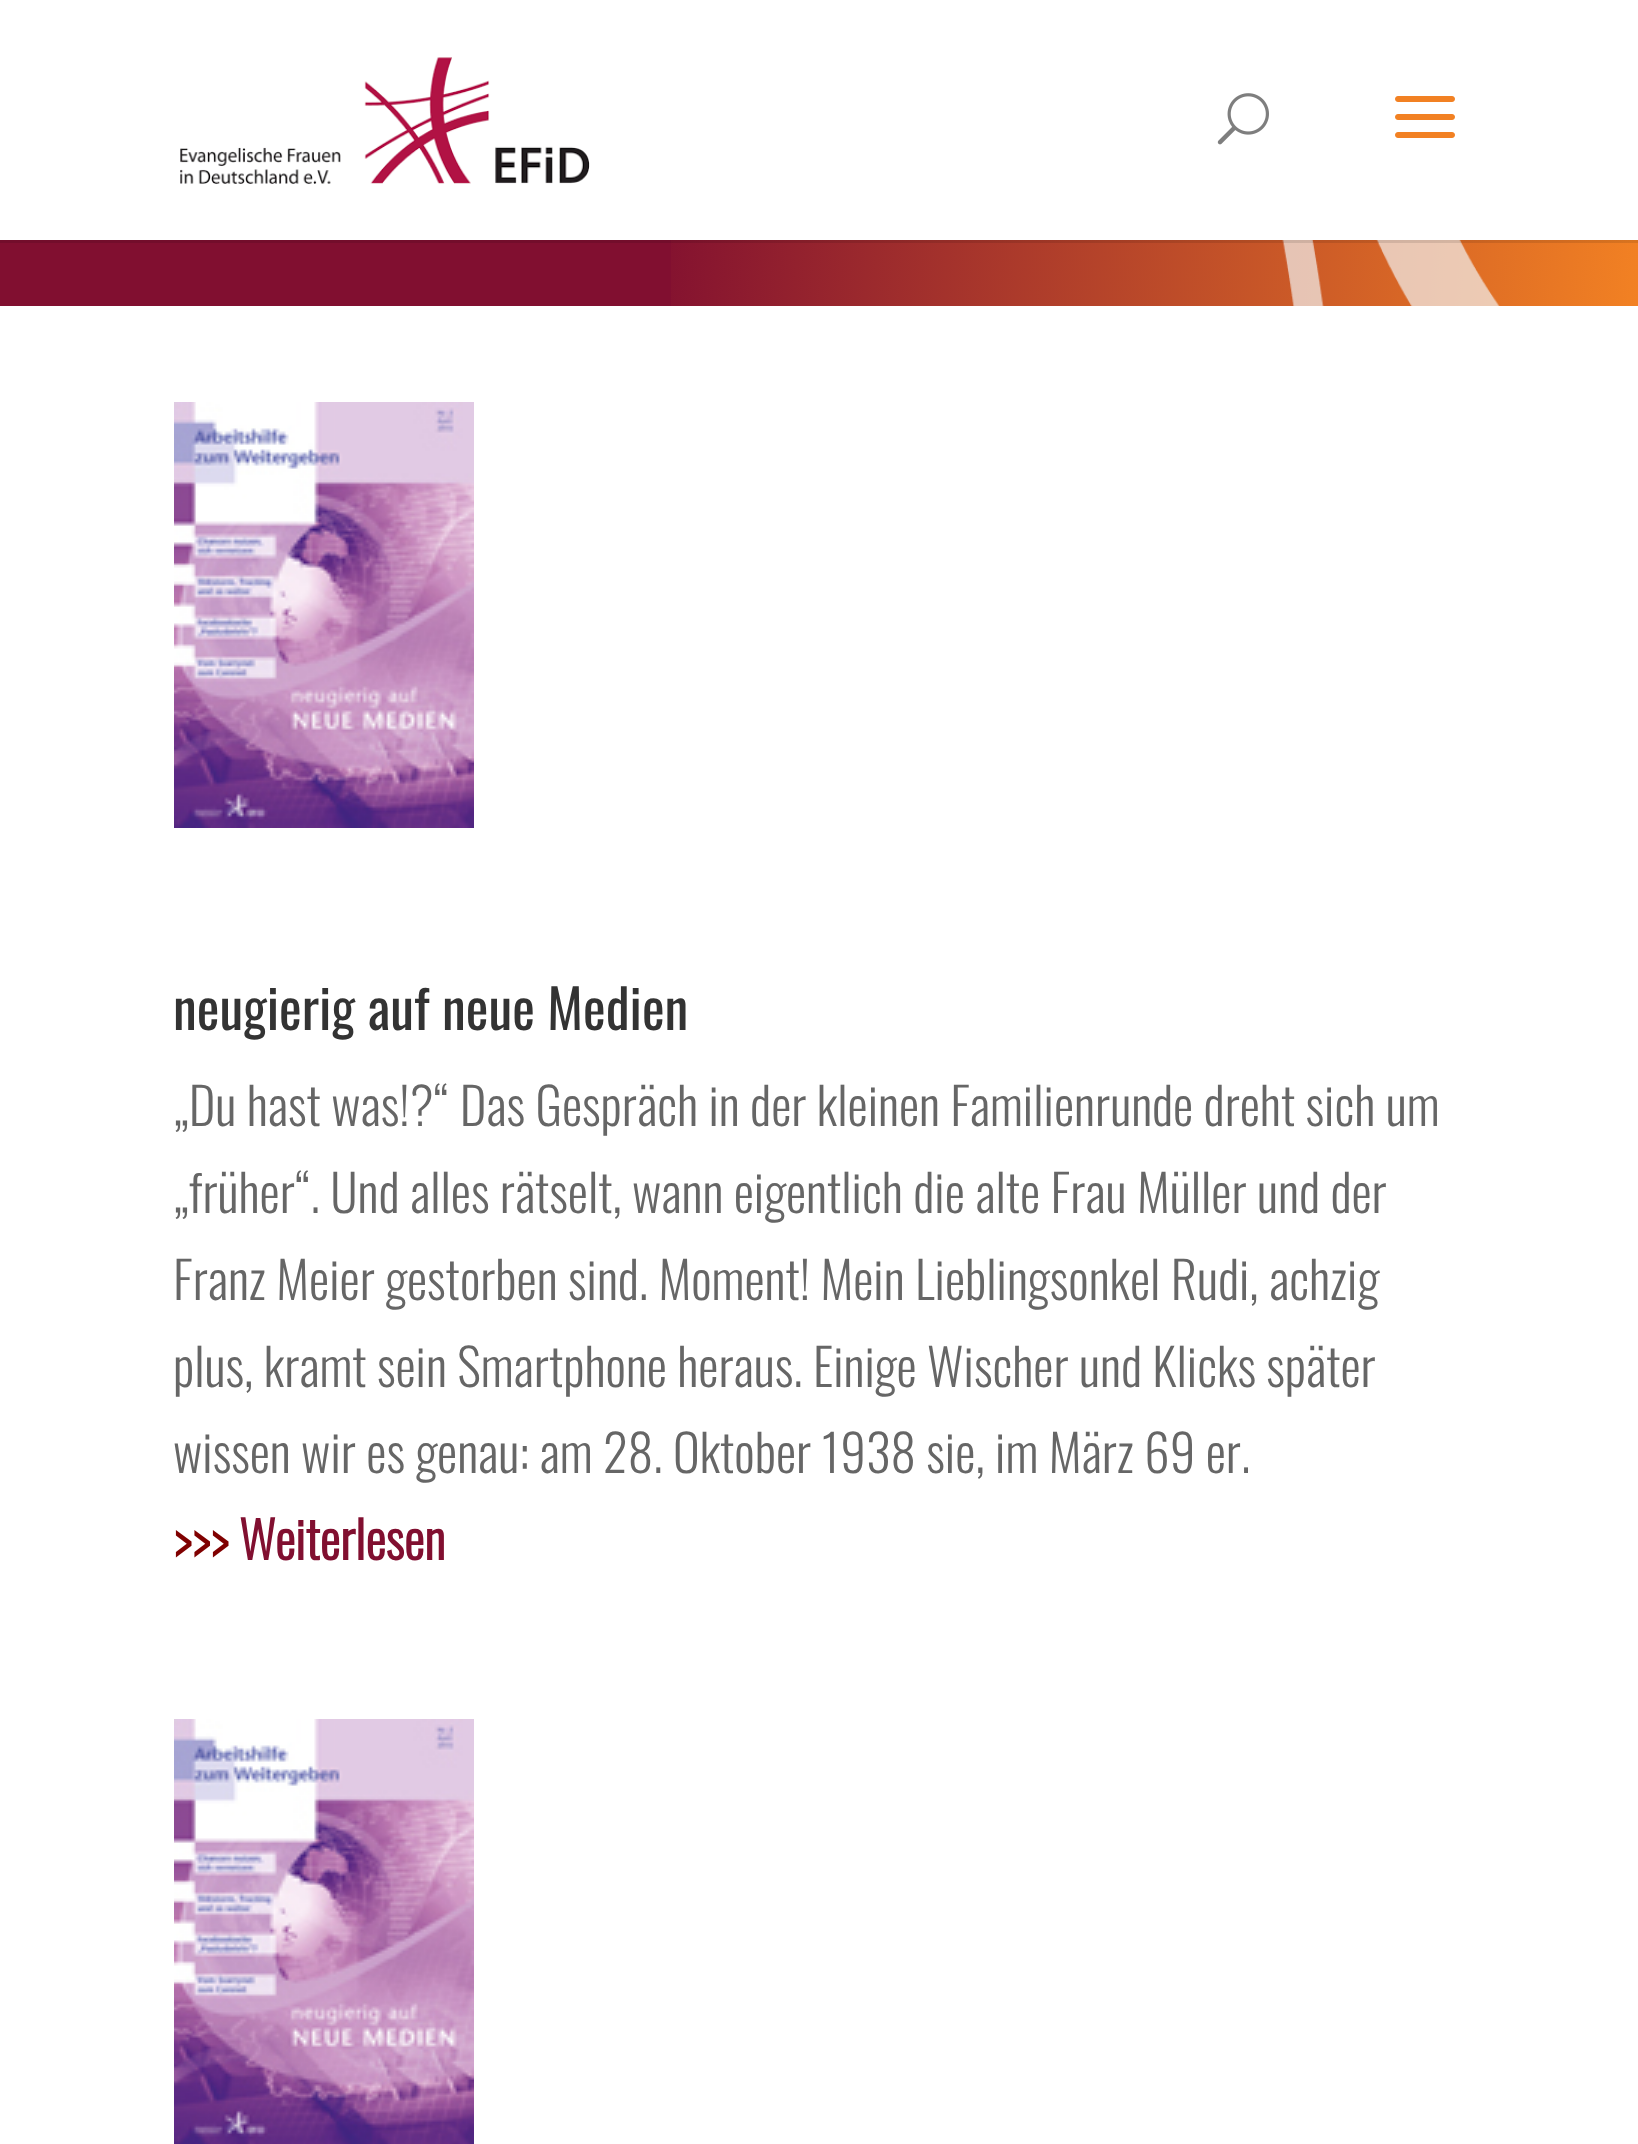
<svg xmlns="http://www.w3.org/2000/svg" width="1638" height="2144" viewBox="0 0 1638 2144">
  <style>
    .t1 { font: 54px Oswald; fill: #333; }
    .t2 { font: 300 51px Oswald; fill: #666; }
    .t3 { font: bold 51px Oswald; fill: #800000; }
    .t4 { font: bold 51px Oswald; fill: #810f30; }
  </style>
  <rect width="100%" height="100%" fill="#fff"/>
  <rect x="0" y="240" width="671" height="66" fill="#810f30"/>
  <image x="671" y="240" width="967" height="66" href="images/4.png"/>
  <rect x="0" y="240" width="1638" height="3" fill="#0000001a"/>
  <image x="180" y="57" width="410" height="127" href="images/1.png"/>
  <image x="1217" y="93" width="52" height="52" href="images/2.png"/>
  <image x="1395" y="96" width="60" height="42" href="images/3.png"/>
  <image x="174" y="402" width="300" height="426" href="images/5.png"/>
  <text x="173" y="1030" class="t1">neugierig auf neue Medien</text>
  <text x="173" y="1126" class="t2">„Du hast was!?“ Das Gespräch in der kleinen Familienrunde dreht sich um</text>
  <text x="173" y="1213" class="t2">„früher“. Und alles rätselt, wann eigentlich die alte Frau Müller und der</text>
  <text x="173" y="1300" class="t2">Franz Meier gestorben sind. Moment! Mein Lieblingsonkel Rudi, achzig</text>
  <text x="173" y="1387" class="t2">plus, kramt sein Smartphone heraus. Einige Wischer und Klicks später</text>
  <text x="173" y="1473" class="t2">wissen wir es genau: am 28. Oktober 1938 sie, im März 69 er.</text>
  <text x="173" y="1560" class="t3">&gt;&gt;&gt;</text>
  <text x="239" y="1560" class="t4">Weiterlesen</text>
  <image x="174" y="1719" width="300" height="425" href="images/6.png"/>
</svg>
